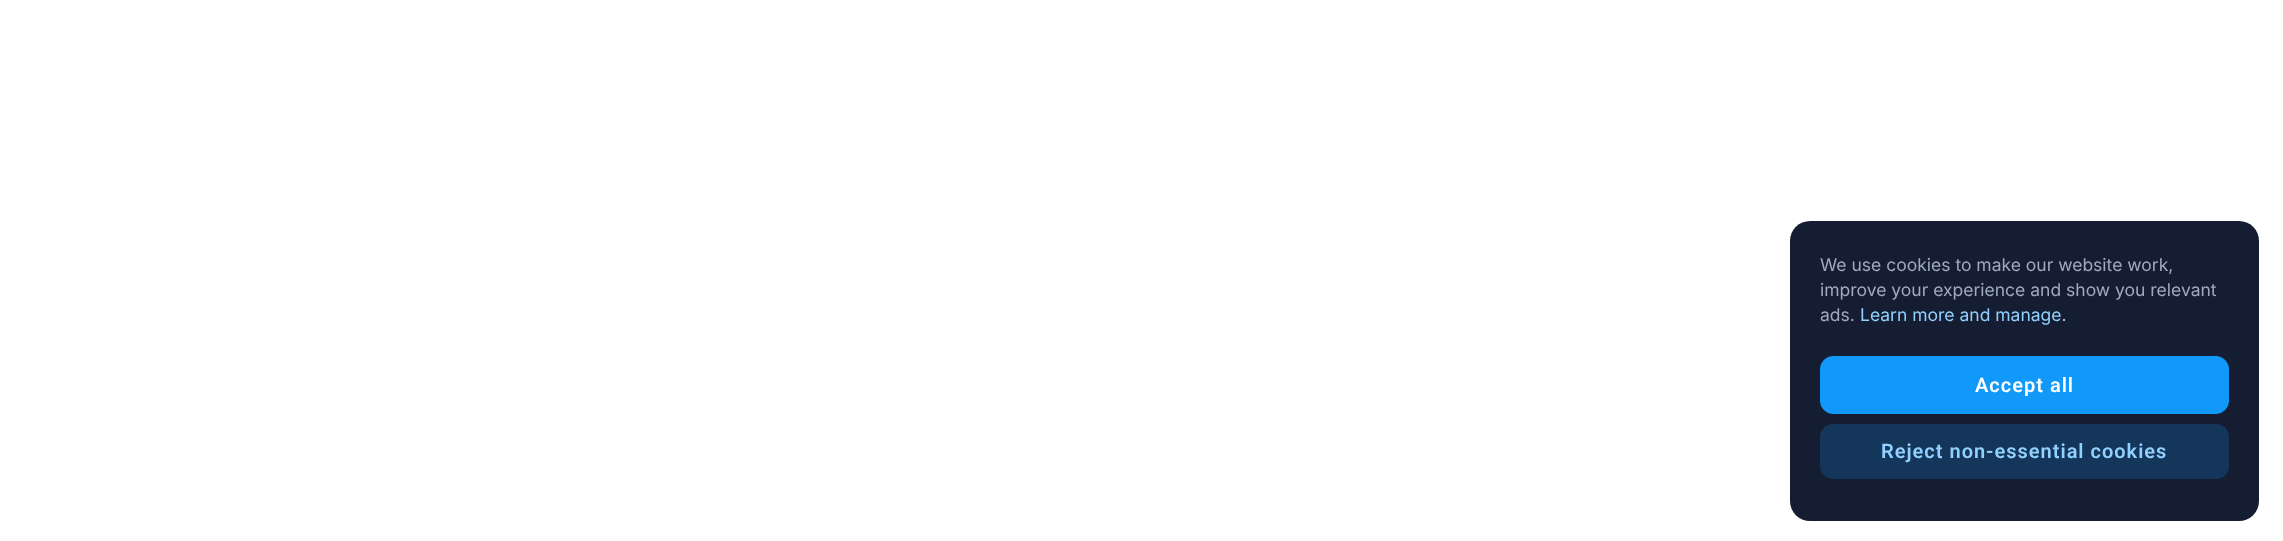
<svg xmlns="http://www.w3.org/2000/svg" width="2283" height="541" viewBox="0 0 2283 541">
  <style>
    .t1 { font: 17.5px Inter; fill: #a0a9be; }
    .t2 { font: 17.5px Inter; fill: #92d1ff; }
    .t3 { font: 600 20px Roboto; letter-spacing: 1px; fill: #fff; }
    .t4 { font: 600 20px Roboto; letter-spacing: 1px; fill: #92d1ff; }
  </style>
  <rect width="100%" height="100%" fill="#fff"/>
  <rect x="1790" y="221" width="469" height="300" rx="20" fill="#151d32"/>
  <text x="1820" y="271" class="t1">We use cookies to make our website work,</text>
  <text x="1820" y="296" class="t1">improve your experience and show you relevant</text>
  <text x="1820" y="321" class="t1">ads.</text>
  <text x="1860" y="321" class="t2">Learn more and manage.</text>
  <rect x="1820.5" y="356.5" width="408" height="57" rx="12.5" fill="#1199fa" stroke="#1199fa"/>
  <text x="1975" y="392" class="t3">Accept all</text>
  <rect x="1820" y="424" width="409" height="55" rx="13" fill="#14365a"/>
  <text x="1881" y="458" class="t4">Reject non-essential cookies</text>
</svg>
